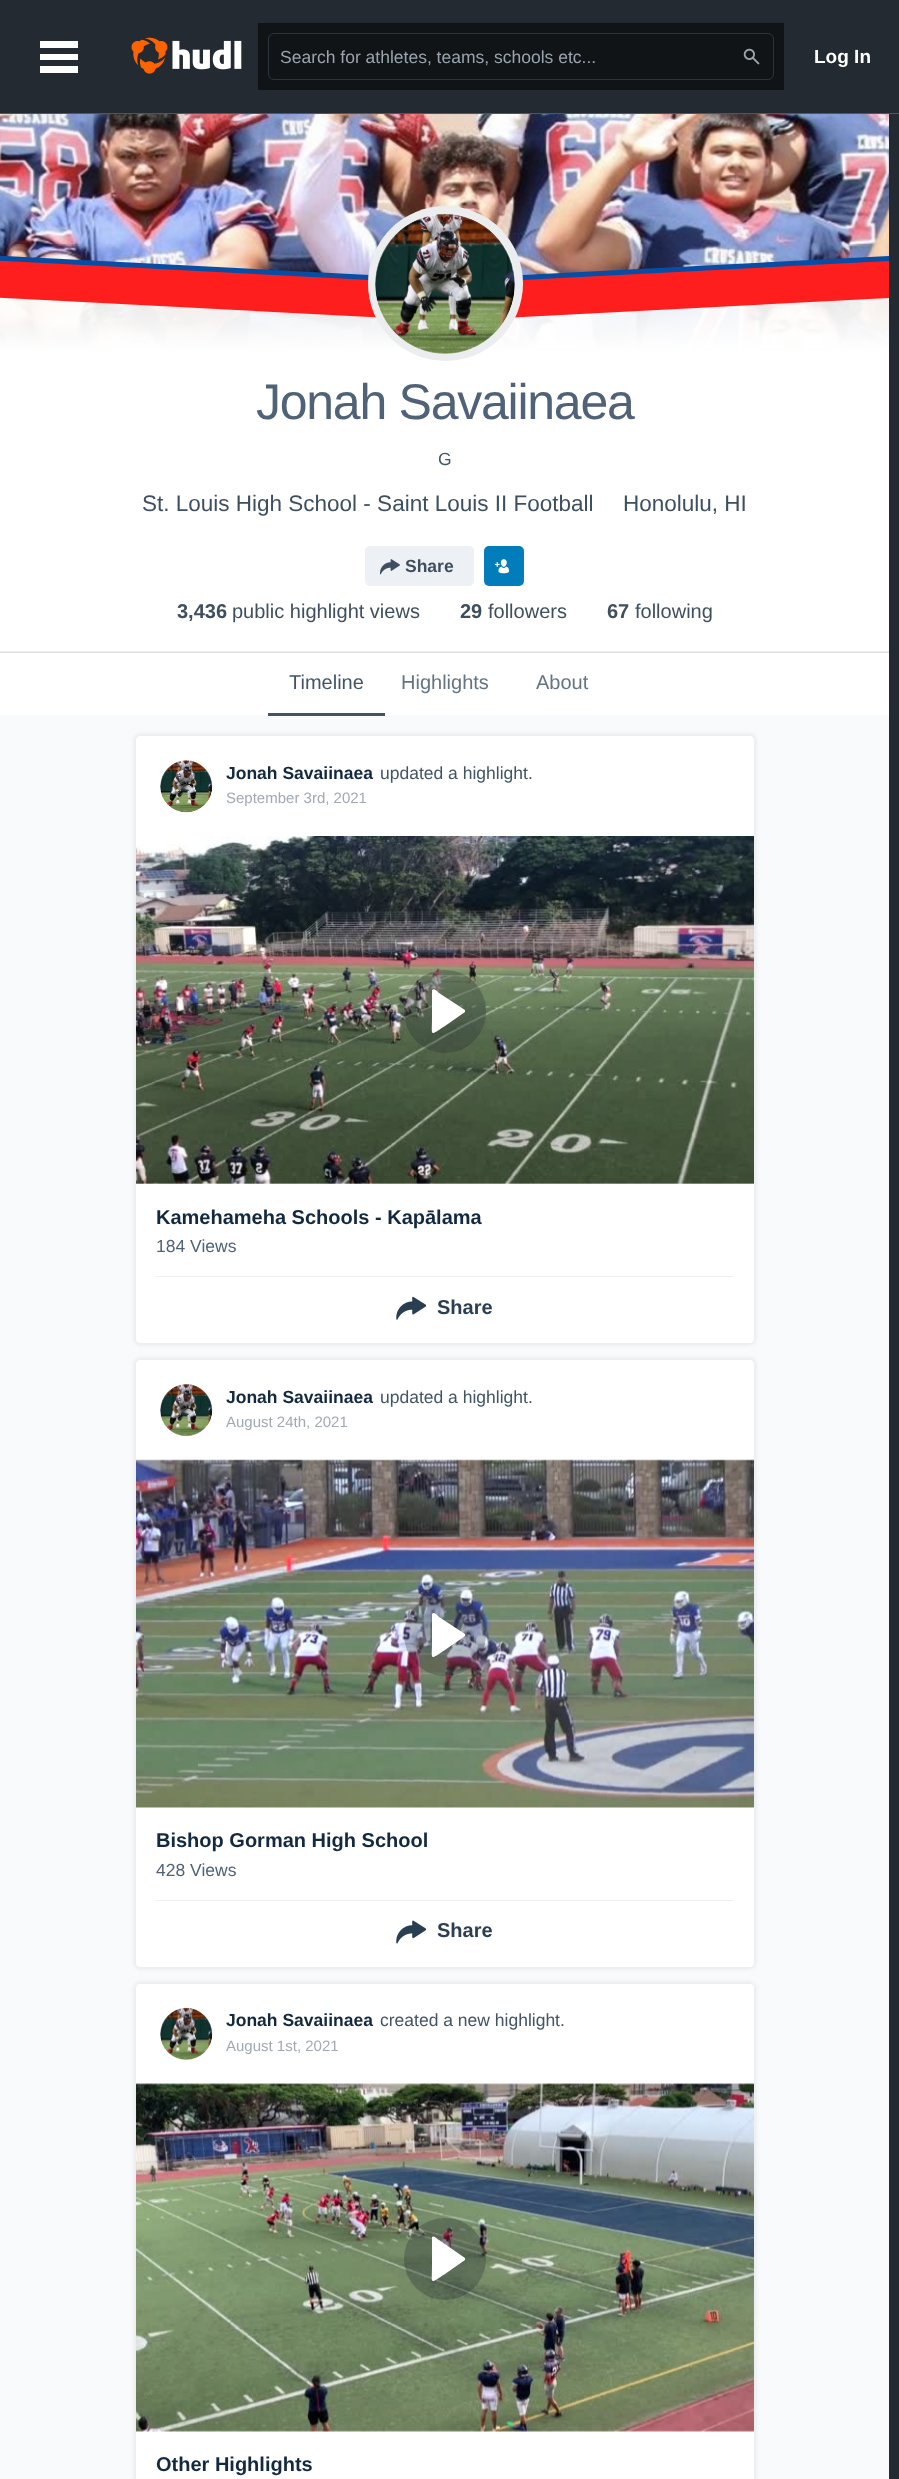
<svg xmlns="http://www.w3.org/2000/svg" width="899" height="2479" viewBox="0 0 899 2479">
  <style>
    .t1 { font: 17.5px Liberation Sans; fill: #9ba4ae; }
    .t2 { font: bold 19px Liberation Sans; fill: #fff; }
    .t3 { font: 50px Liberation Sans; letter-spacing: -1.25px; fill: #506277; }
    .t4 { font: 17.5px Liberation Sans; fill: #425465; }
    .t5 { font: 22.5px Liberation Sans; fill: #3f4f5f; }
    .t6 { font: bold 17.5px Liberation Sans; fill: #3f4f5f; }
    .t7 { font: bold 20px Liberation Sans; fill: #3f4f5f; }
    .t8 { font: 20px Liberation Sans; fill: #3f4f5f; }
    .t9 { font: 20px Liberation Sans; fill: #425465; }
    .t10 { font: 20px Liberation Sans; fill: #667482; }
    .t11 { font: bold 17.5px Liberation Sans; fill: #13293f; }
    .t12 { font: 15px Liberation Sans; fill: #a1a9b2; }
    .t13 { font: bold 20px Liberation Sans; fill: #13293f; }
    .t14 { font: 17.5px Liberation Sans; fill: #506277; }
    .t15 { font: bold 20px Liberation Sans; fill: #2b3e52; }
  </style>
  <defs>
    <linearGradient id="g1" gradientUnits="userSpaceOnUse" x1="444" y1="276" x2="444" y2="651"><stop offset="0" stop-color="#fff" stop-opacity="0.85"/><stop offset="0.2" stop-color="#fff"/></linearGradient>
    <linearGradient id="g2" gradientUnits="userSpaceOnUse" x1="444" y1="651" x2="444" y2="1026"><stop offset="0" stop-color="#dedfe0"/><stop offset="0.2" stop-color="#fff"/></linearGradient>
    <clipPath id="clip1"><rect x="0" y="254" width="889" height="62"/></clipPath>
    <clipPath id="clip2"><rect x="0" y="259" width="889" height="62"/></clipPath>
  </defs>
  <rect width="100%" height="100%" fill="#232a31"/>
  <rect x="0" y="113" width="899" height="1" fill="#4c5761"/>
  <rect x="40" y="41" width="38" height="7" fill="#fff"/>
  <rect x="40" y="54" width="38" height="6" fill="#fff"/>
  <rect x="40" y="66" width="38" height="7" fill="#fff"/>
  <image x="131" y="37" width="111" height="37" href="images/1.png"/>
  <rect x="258" y="23" width="526" height="67" fill="#101417"/>
  <rect x="268.5" y="33.5" width="505" height="46" rx="5.5" fill="none" stroke="#2c353e"/>
  <text x="280" y="63" class="t1">Search for athletes, teams, schools etc...</text>
  <image x="743" y="48" width="17" height="17" href="images/2.png"/>
  <text x="814" y="63" class="t2">Log In</text>
  <image x="0" y="114" width="889" height="234" href="images/3.png"/>
  <rect x="0" y="297" width="889" height="354" fill="url(#g1)"/>
  <rect x="0" y="652" width="889" height="1" fill="url(#g2)"/>
  <rect x="0" y="651" width="889" height="1" fill="#edf0f2"/>
  <g clip-path="url(#clip1)">
    <path d="M-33 254L447 279L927 254V291L447 316L-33 291Z" fill="#084da4" fill-rule="evenodd"/>
  </g>
  <g clip-path="url(#clip2)">
    <path d="M-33 259L447 284L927 259V296L447 321L-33 296Z" fill="#ff1e1e" fill-rule="evenodd"/>
  </g>
  <circle cx="445.5" cy="283.5" r="77.5" fill="#fff"/>
  <circle cx="445.5" cy="283.5" r="73.5" fill="none" stroke="#45525e1a" stroke-width="8"/>
  <image x="375" y="213" width="140" height="141" href="images/4.png"/>
  <text x="256" y="419" class="t3">Jonah Savaiinaea</text>
  <text x="438" y="465" class="t4">G</text>
  <text x="142" y="511" class="t5">St. Louis High School - Saint Louis II Football</text>
  <text x="623" y="511" class="t5">Honolulu, HI</text>
  <rect x="365" y="546" width="109" height="40" rx="5" fill="#edf1f5"/>
  <image x="380" y="559" width="20" height="16" href="images/5.png"/>
  <text x="405" y="572" class="t6">Share</text>
  <rect x="484" y="546" width="40" height="40" rx="5" fill="#027dbb"/>
  <image x="494" y="559" width="15" height="15" href="images/6.png"/>
  <text x="177" y="618" class="t7">3,436</text>
  <text x="232" y="618" class="t8">public highlight views</text>
  <text x="460" y="618" class="t7">29</text>
  <text x="488" y="618" class="t8">followers</text>
  <text x="607" y="618" class="t7">67</text>
  <text x="635" y="618" class="t8">following</text>
  <rect x="0" y="653" width="889" height="62" fill="#fff"/>
  <rect x="0" y="715" width="889" height="1764" fill="#f9fafb"/>
  <rect x="268" y="713" width="117" height="3" fill="#13293fcc"/>
  <text x="289" y="689" class="t9">Timeline</text>
  <text x="401" y="689" class="t10">Highlights</text>
  <text x="536" y="689" class="t10">About</text>
  <rect x="135" y="735" width="620" height="609" rx="5" fill="#0000001a" filter="blur(2.5px)"/>
  <rect x="135.5" y="735.5" width="619" height="608" rx="4.5" fill="#fff" stroke="#edf0f2"/>
  <image x="160" y="760" width="53" height="53" href="images/7.png"/>
  <text x="226" y="779" class="t11">Jonah Savaiinaea</text>
  <text x="380" y="779" class="t4">updated a highlight.</text>
  <text x="226" y="803" class="t12">September 3rd, 2021</text>
  <image x="136" y="836" width="618" height="348" href="images/8.png"/>
  <rect x="404" y="970" width="82" height="83" rx="41" fill="#232a314d"/>
  <path d="M432 990V1018C432 1037 429 1036 445 1026L465 1012V1010L439 993C437 991 434 988 432 990Z" fill="#fff" fill-rule="evenodd"/>
  <text x="156" y="1224" class="t13">Kamehameha Schools - Kapālama</text>
  <text x="156" y="1252" class="t14">184 Views</text>
  <rect x="156" y="1276" width="578" height="1" fill="#edf0f2"/>
  <image x="396" y="1296" width="30" height="24" href="images/9.png"/>
  <text x="437" y="1314" class="t15">Share</text>
  <rect x="135" y="1359" width="620" height="609" rx="5" fill="#0000001a" filter="blur(2.5px)"/>
  <rect x="135.5" y="1359.5" width="619" height="608" rx="4.5" fill="#fff" stroke="#edf0f2"/>
  <image x="160" y="1383" width="53" height="54" href="images/10.png"/>
  <text x="226" y="1403" class="t11">Jonah Savaiinaea</text>
  <text x="380" y="1403" class="t4">updated a highlight.</text>
  <text x="226" y="1427" class="t12">August 24th, 2021</text>
  <image x="136" y="1459" width="618" height="349" href="images/11.png"/>
  <circle cx="445" cy="1635" r="41" fill="#232a314d"/>
  <path d="M432 1614V1642C432 1661 429 1660 445 1650L465 1636V1634L439 1617C437 1615 434 1611 432 1614Z" fill="#fff" fill-rule="evenodd"/>
  <text x="156" y="1847" class="t13">Bishop Gorman High School</text>
  <text x="156" y="1876" class="t14">428 Views</text>
  <rect x="156" y="1900" width="578" height="1" fill="#edf0f2"/>
  <image x="396" y="1920" width="30" height="24" href="images/12.png"/>
  <text x="437" y="1937" class="t15">Share</text>
  <rect x="135" y="1983" width="620" height="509" rx="5" fill="#0000001a" filter="blur(2.5px)"/>
  <path d="M140 1983H750C753 1983 755 1985 755 1988V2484H135V1988C135 1985 137 1983 140 1983Z" fill="#fff"/>
  <rect x="135.5" y="1983.5" width="619" height="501" rx="4.5" fill="none" stroke="#edf0f2"/>
  <image x="160" y="2007" width="53" height="53" href="images/13.png"/>
  <text x="226" y="2026" class="t11">Jonah Savaiinaea</text>
  <text x="380" y="2026" class="t4">created a new highlight.</text>
  <text x="226" y="2051" class="t12">August 1st, 2021</text>
  <image x="136" y="2083" width="618" height="349" href="images/14.png"/>
  <circle cx="445" cy="2259" r="41" fill="#232a314d"/>
  <path d="M432 2237V2266C432 2285 429 2284 445 2274L465 2260V2258L439 2240C437 2239 434 2235 432 2237Z" fill="#fff" fill-rule="evenodd"/>
  <text x="156" y="2471" class="t13">Other Highlights</text>
</svg>
